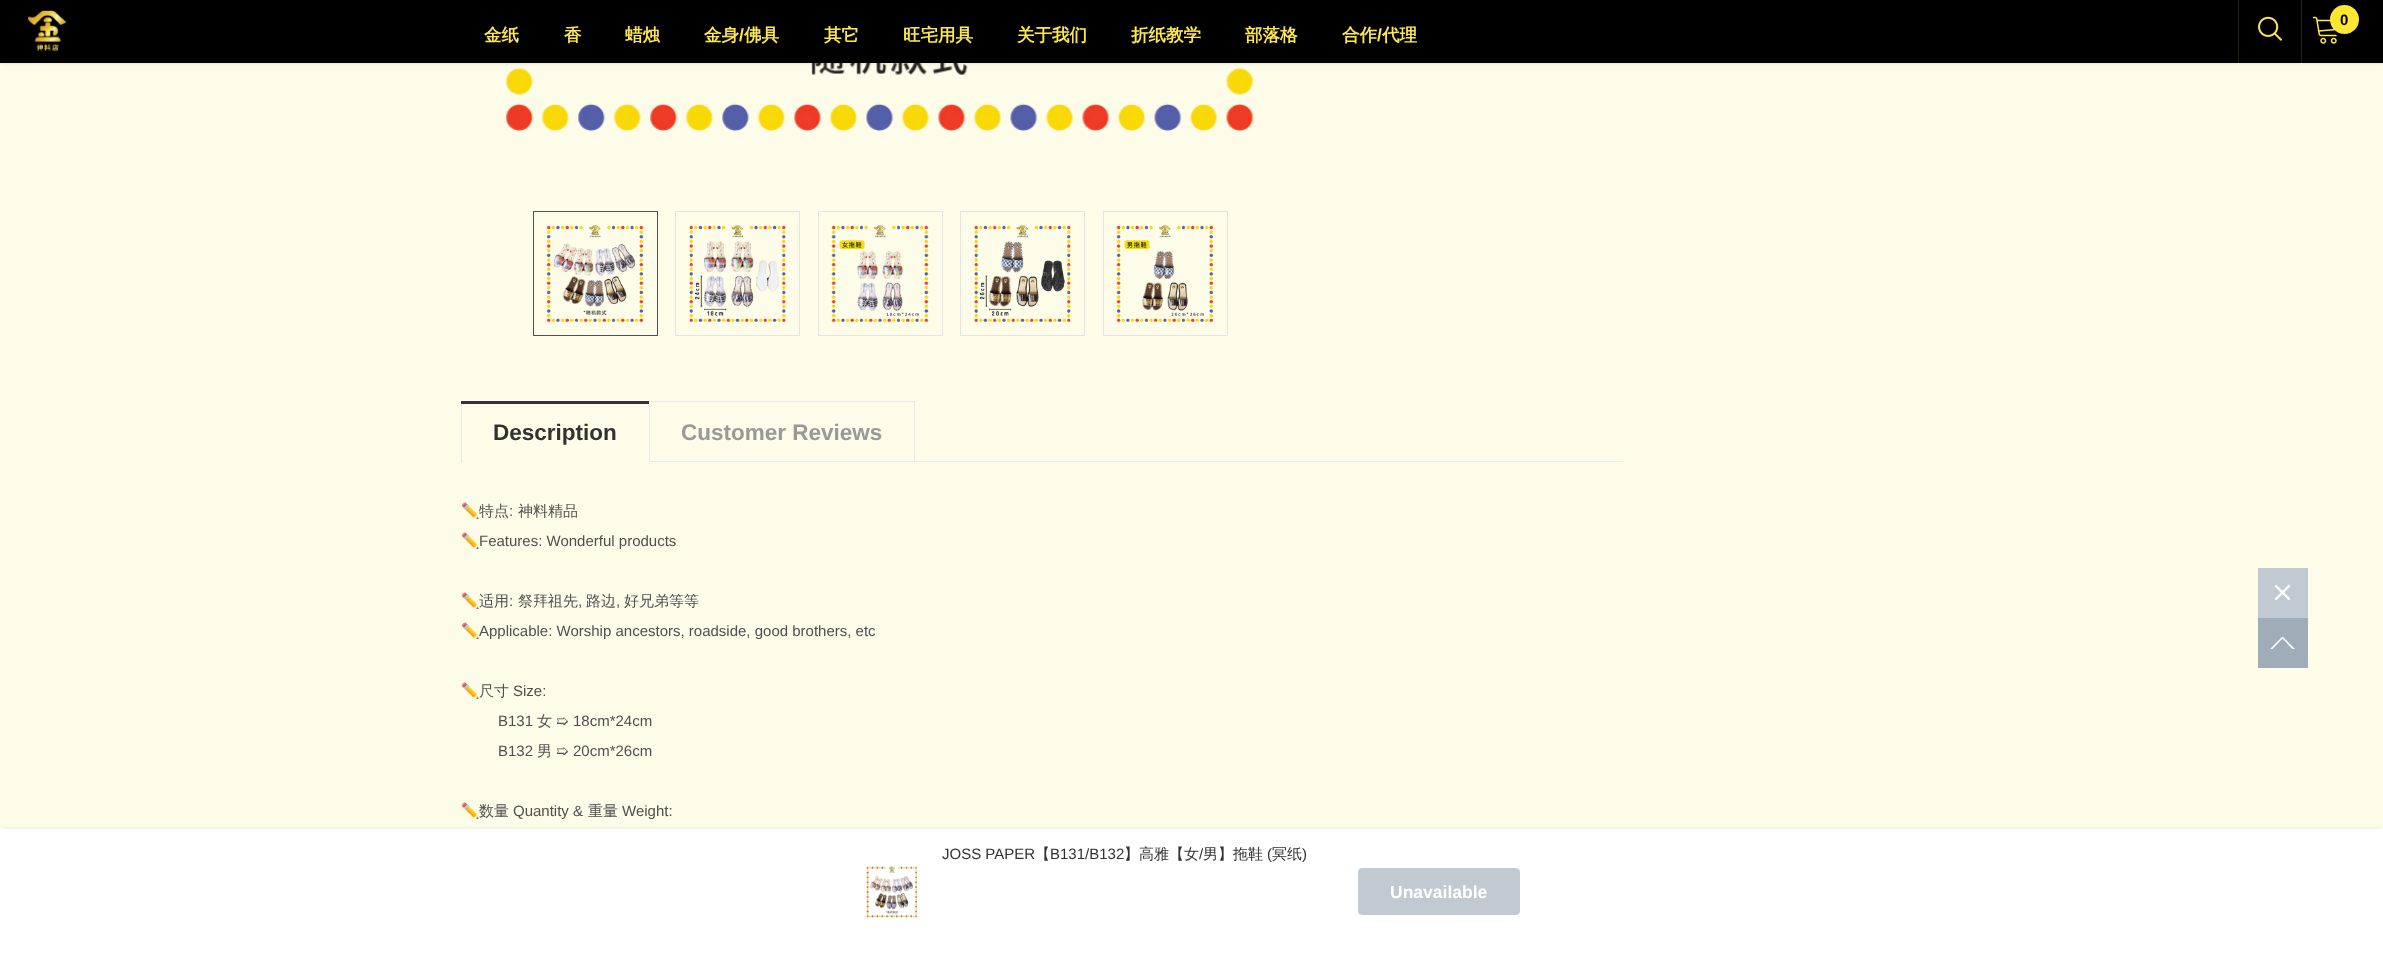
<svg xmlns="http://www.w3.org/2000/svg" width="2383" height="953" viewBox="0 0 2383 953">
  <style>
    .t1 { font: bold 15px Arimo; fill: #000; }
    .t2 { font: bold 17.5px WenQuanYi Zen Hei; fill: #fce750; }
    .t3 { font: bold 17.5px Arimo; fill: #fce750; }
    .t4 { font: bold 22.5px Arimo; fill: #323232; }
    .t5 { font: bold 22.5px Arimo; fill: #999; }
    .t6 { font: 15px Noto Color Emoji; fill: #505050; }
    .t7 { font: 500 15px WenQuanYi Zen Hei; fill: #505050; }
    .t8 { font: 15px Arimo; fill: #505050; }
    .t9 { font: 15px DejaVu Sans; fill: #505050; }
    .t10 { font: 15px Arimo; fill: #323232; }
    .t11 { font: 500 15px WenQuanYi Zen Hei; fill: #323232; }
    .t12 { font: bold 17.5px Arimo; fill: #fff; }
  </style>
  <rect width="100%" height="100%" fill="#fdfce8"/>
  <image x="505" y="63" width="749" height="68" href="images/4.png"/>
  <rect x="0" y="0" width="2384" height="63" fill="#0000001f" filter="blur(2px)"/>
  <rect x="0" y="0" width="2383" height="63" fill="#000"/>
  <image x="2312" y="16" width="25" height="28" href="images/1.png"/>
  <circle cx="2344.5" cy="19.5" r="14.5" fill="#ffe631"/>
  <text x="2340" y="25" class="t1">0</text>
  <image x="27" y="10" width="40" height="41" href="images/2.png"/>
  <text x="484" y="41" class="t2">金纸</text>
  <text x="564" y="41" class="t2">香</text>
  <text x="625" y="41" class="t2">蜡烛</text>
  <text x="704" y="41" class="t2">金身</text>
  <text x="739" y="41" class="t3">/</text>
  <text x="744" y="41" class="t2">佛具</text>
  <text x="824" y="41" class="t2">其它</text>
  <text x="903" y="41" class="t2">旺宅用具</text>
  <text x="1017" y="41" class="t2">关于我们</text>
  <text x="1131" y="41" class="t2">折纸教学</text>
  <text x="1245" y="41" class="t2">部落格</text>
  <text x="1342" y="41" class="t2">合作</text>
  <text x="1377" y="41" class="t3">/</text>
  <text x="1382" y="41" class="t2">代理</text>
  <rect x="2238" y="0" width="1" height="63" fill="#26230c"/>
  <image x="2258" y="16" width="24" height="25" href="images/3.png"/>
  <rect x="2301" y="0" width="1" height="63" fill="#26230c"/>
  <rect x="533.5" y="211.5" width="124" height="124" fill="none" stroke="#515151"/>
  <image x="546" y="225" width="98" height="97" href="images/5.png"/>
  <rect x="675.5" y="211.5" width="124" height="124" fill="none" stroke="#e4e4e4"/>
  <image x="689" y="225" width="97" height="97" href="images/6.png"/>
  <rect x="818.5" y="211.5" width="124" height="124" fill="none" stroke="#e4e4e4"/>
  <image x="831" y="225" width="98" height="97" href="images/7.png"/>
  <rect x="960.5" y="211.5" width="124" height="124" fill="none" stroke="#e4e4e4"/>
  <image x="974" y="225" width="97" height="97" href="images/8.png"/>
  <rect x="1103.5" y="211.5" width="124" height="124" fill="none" stroke="#e4e4e4"/>
  <image x="1116" y="225" width="98" height="97" href="images/9.png"/>
  <rect x="461" y="461" width="1163" height="1" fill="#e8eaeb"/>
  <rect x="461" y="401" width="1" height="60" fill="#e8eaeb"/>
  <rect x="461" y="401" width="189" height="3" fill="#34313a"/>
  <text x="493" y="440" class="t4">Description</text>
  <rect x="463" y="461" width="186" height="1" fill="#fdfce8"/>
  <rect x="649" y="401" width="266" height="1" fill="#e8eaeb"/>
  <rect x="914" y="401" width="1" height="60" fill="#e8eaeb"/>
  <rect x="649" y="401" width="1" height="60" fill="#e8eaeb"/>
  <text x="681" y="440" class="t5">Customer Reviews</text>
  <text x="461" y="516" class="t6">✏️</text>
  <text x="479" y="516" class="t7">特点</text>
  <text x="509" y="516" class="t8">:</text>
  <text x="518" y="516" class="t7">神料精品</text>
  <text x="461" y="546" class="t6">✏️</text>
  <text x="479" y="546" class="t8">Features: Wonderful products</text>
  <text x="461" y="606" class="t6">✏️</text>
  <text x="479" y="606" class="t7">适用</text>
  <text x="509" y="606" class="t8">:</text>
  <text x="518" y="606" class="t7">祭拜祖先</text>
  <text x="578" y="606" class="t8">,</text>
  <text x="586" y="606" class="t7">路边</text>
  <text x="616" y="606" class="t8">,</text>
  <text x="624" y="606" class="t7">好兄弟等等</text>
  <text x="461" y="636" class="t6">✏️</text>
  <text x="479" y="636" class="t8">Applicable: Worship ancestors, roadside, good brothers, etc</text>
  <text x="461" y="696" class="t6">✏️</text>
  <text x="479" y="696" class="t7">尺寸</text>
  <text x="513" y="696" class="t8">Size:</text>
  <text x="498" y="726" class="t8">B131</text>
  <text x="537" y="726" class="t7">女</text>
  <text x="556" y="726" class="t9">➯</text>
  <text x="573" y="726" class="t8">18cm*24cm</text>
  <text x="498" y="756" class="t8">B132</text>
  <text x="537" y="756" class="t7">男</text>
  <text x="556" y="756" class="t9">➯</text>
  <text x="573" y="756" class="t8">20cm*26cm</text>
  <text x="461" y="816" class="t6">✏️</text>
  <text x="479" y="816" class="t7">数量</text>
  <text x="513" y="816" class="t8">Quantity &amp;</text>
  <text x="588" y="816" class="t7">重量</text>
  <text x="622" y="816" class="t8">Weight:</text>
  <rect x="4" y="829" width="2376" height="117" fill="#0000001a" filter="blur(2px)"/>
  <rect x="0" y="829" width="2383" height="124" fill="#fff"/>
  <text x="942" y="859" class="t10">JOSS PAPER</text>
  <text x="1035" y="859" class="t11">【</text>
  <text x="1050" y="859" class="t10">B131/B132</text>
  <text x="1124" y="859" class="t11">】高雅【女</text>
  <text x="1199" y="859" class="t10">/</text>
  <text x="1203" y="859" class="t11">男】拖鞋</text>
  <text x="1267" y="859" class="t10">(</text>
  <text x="1272" y="859" class="t11">冥纸</text>
  <text x="1302" y="859" class="t10">)</text>
  <image x="866" y="866" width="52" height="52" href="images/10.png"/>
  <rect x="1358.5" y="868.5" width="161" height="46" rx="3.5" fill="#c1cad2" stroke="#c1cad2"/>
  <text x="1390" y="898" class="t12">Unavailable</text>
  <rect x="2258" y="568" width="50" height="50" fill="#c1cad2"/>
  <image x="2274" y="584" width="17" height="17" href="images/11.png"/>
  <rect x="2258" y="618" width="50" height="50" fill="#a0acb7"/>
  <path d="M2282.5 638.5L2292.5 649H2295L2282.5 636.5L2270 649H2272.5Z" fill="#fff"/>
</svg>
